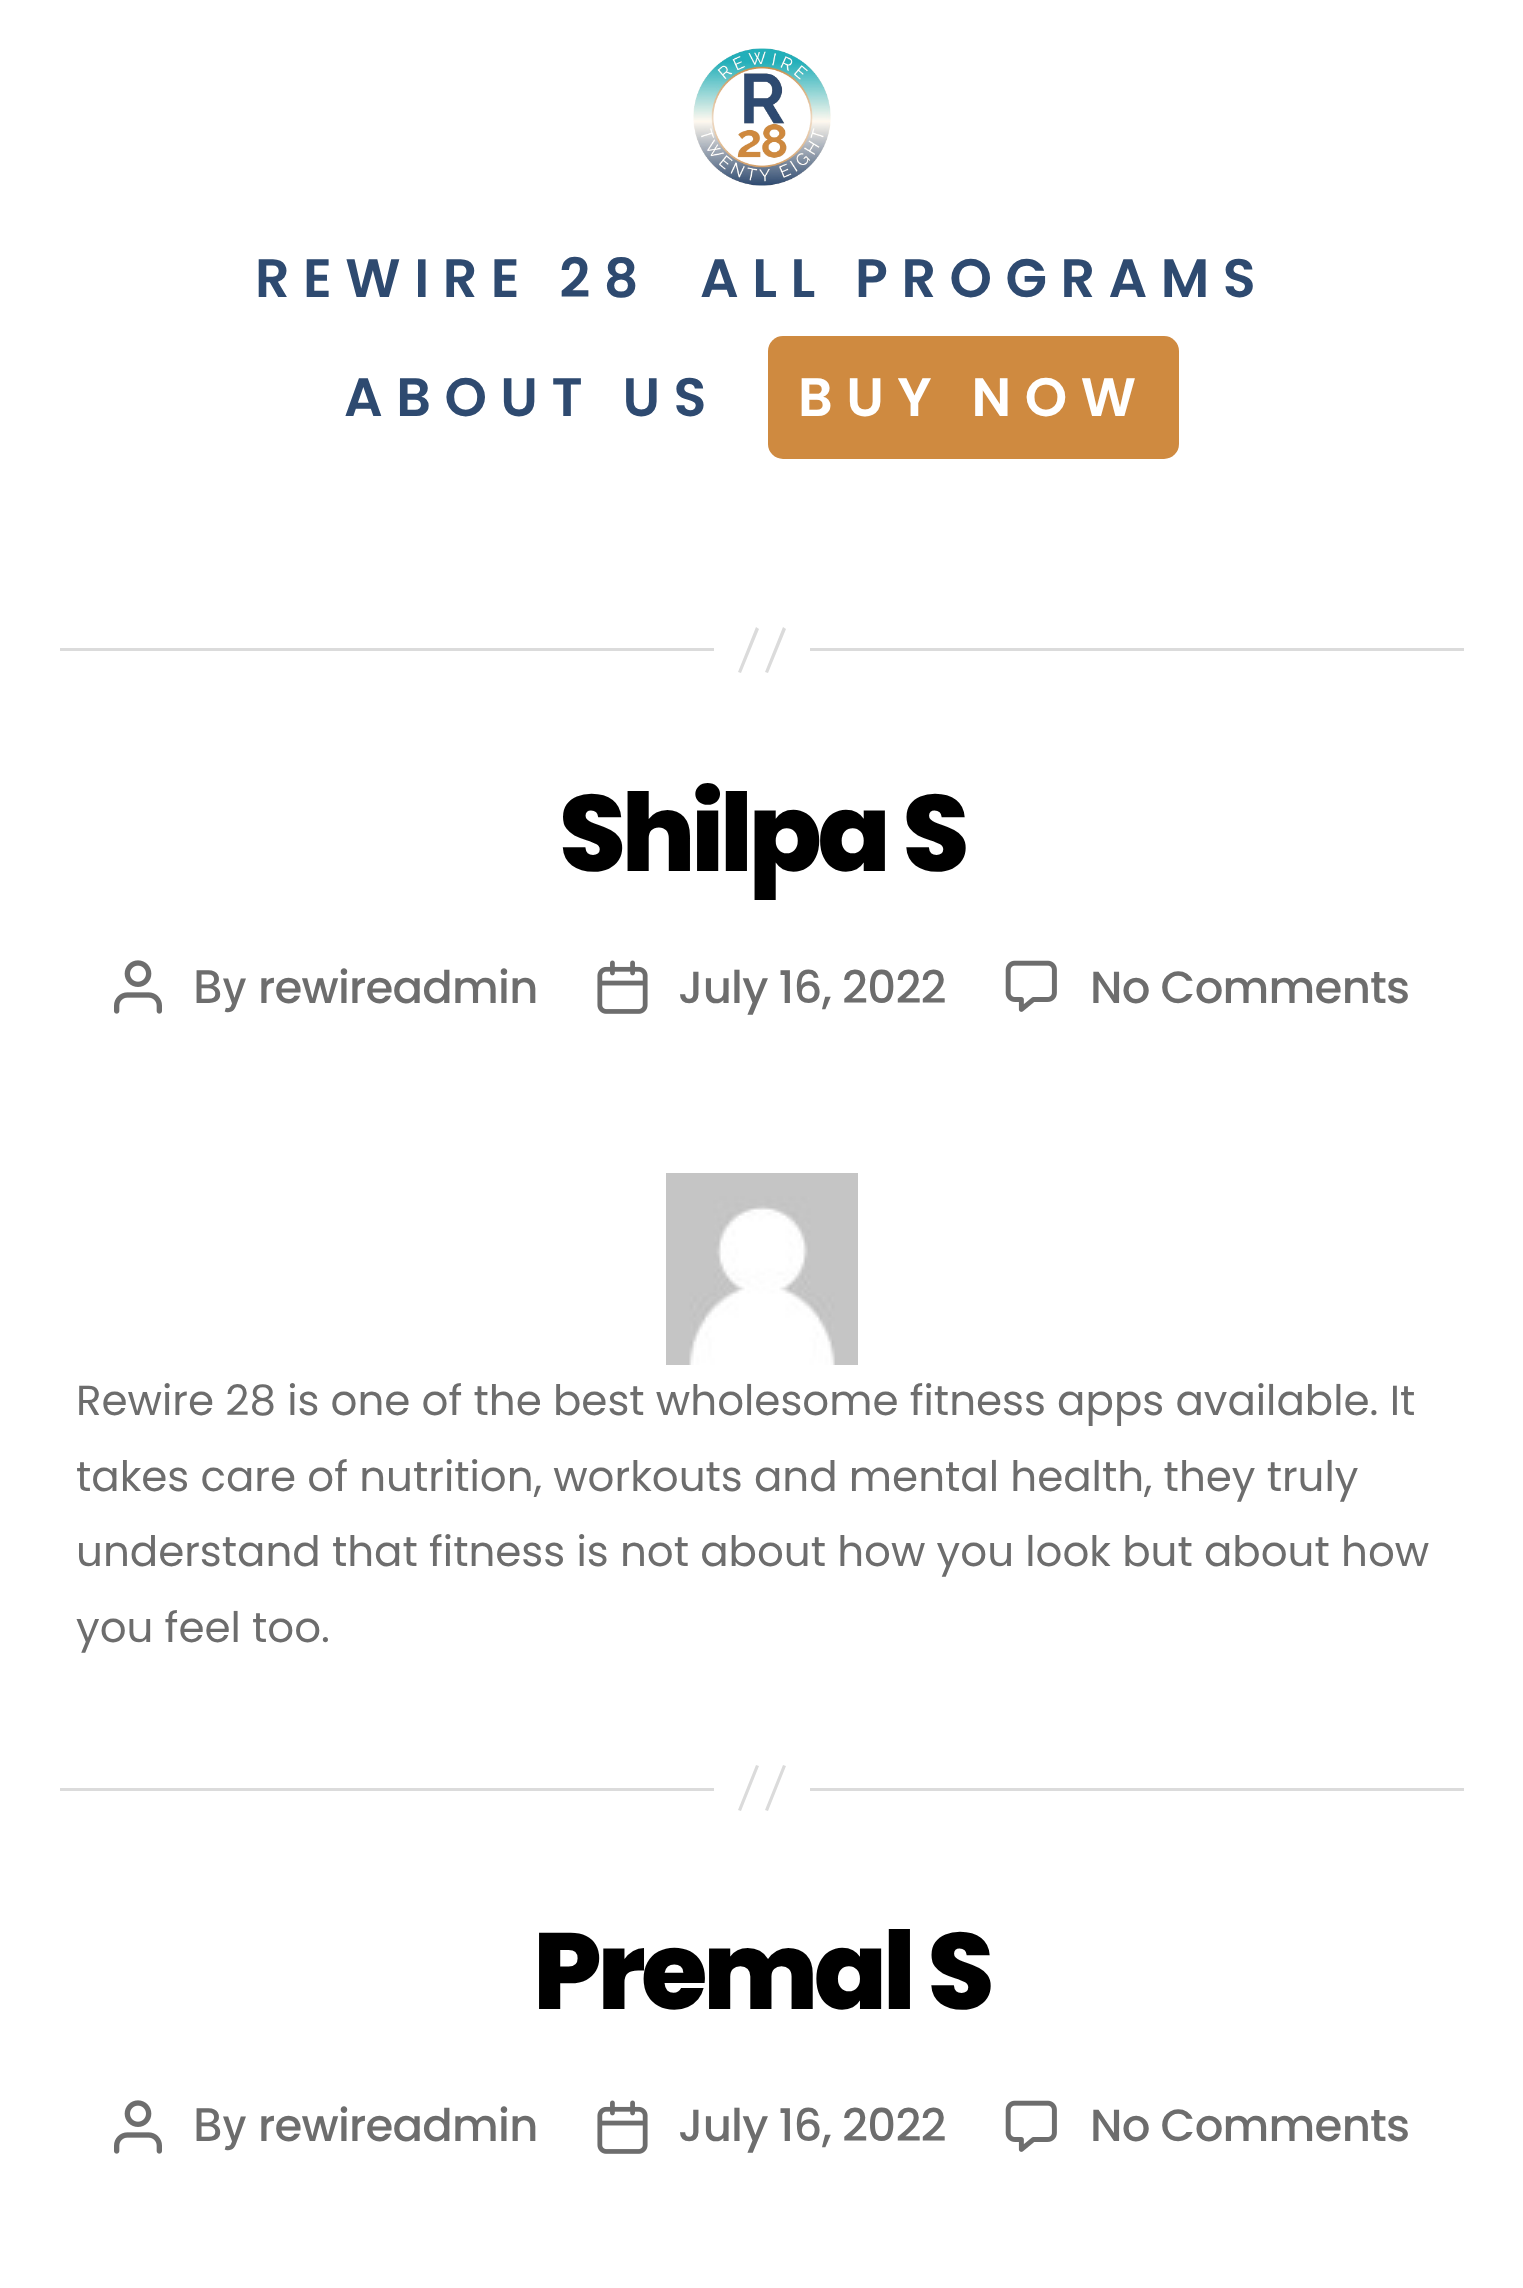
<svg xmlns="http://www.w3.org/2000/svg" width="1523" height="2288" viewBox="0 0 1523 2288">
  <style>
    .t1 { font: 600 54px Poppins; letter-spacing: 13.5px; fill: #2e4a70; }
    .t2 { font: 600 54px Poppins; letter-spacing: 13.5px; fill: #fff; }
    .t3 { font: 800 108px Poppins; letter-spacing: -4.5px; fill: #000; }
    .t4 { font: 500 45px Inter; letter-spacing: -0.75px; fill: #6d6d6d; }
    .t5 { font: 500 45px Poppins; letter-spacing: -0.75px; fill: #6d6d6d; }
    .t6 { font: 42px Poppins; fill: #6d6d6d; }
  </style>
  <rect width="100%" height="100%" fill="#fff"/>
  <image x="693" y="48" width="138" height="138" href="images/1.png"/>
  <text x="255" y="297" class="t1">REWIRE 28</text>
  <text x="700" y="297" class="t1">ALL PROGRAMS</text>
  <text x="344" y="416" class="t1">ABOUT US</text>
  <rect x="768" y="336" width="411" height="123" rx="15" fill="#cf8a40"/>
  <text x="798" y="416" class="t2">BUY NOW</text>
  <rect x="810" y="648" width="654" height="3" fill="#dbdbdb"/>
  <rect x="60" y="648" width="654" height="3" fill="#dbdbdb"/>
  <path d="M756 627L759 629L741 673L738 672ZM783 627L786 629L768 673L765 672Z" fill="#dbdbdb"/>
  <text x="559" y="871" class="t3">Shilpa S</text>
  <image x="114" y="960" width="48" height="54" href="images/2.png"/>
  <text x="193" y="1003" class="t4">By</text>
  <text x="258" y="1003" class="t5">rewireadmin</text>
  <image x="597" y="960" width="51" height="54" href="images/3.png"/>
  <text x="678" y="1003" class="t5">July 16, 2022</text>
  <image x="1005" y="960" width="52" height="52" href="images/4.png"/>
  <text x="1090" y="1003" class="t5">No Comments</text>
  <image x="666" y="1173" width="192" height="192" href="images/5.png"/>
  <text x="76" y="1415" class="t6">Rewire 28 is one of the best wholesome fitness apps available. It</text>
  <text x="76" y="1491" class="t6">takes care of nutrition, workouts and mental health, they truly</text>
  <text x="76" y="1566" class="t6">understand that fitness is not about how you look but about how</text>
  <text x="76" y="1642" class="t6">you feel too.</text>
  <rect x="810" y="1788" width="654" height="3" fill="#dbdbdb"/>
  <rect x="60" y="1788" width="654" height="3" fill="#dbdbdb"/>
  <path d="M756 1765L759 1766L741 1811L738 1810ZM783 1765L786 1766L768 1811L765 1810Z" fill="#dbdbdb"/>
  <text x="533" y="2009" class="t3">Premal S</text>
  <image x="114" y="2100" width="48" height="54" href="images/2.png"/>
  <text x="193" y="2141" class="t4">By</text>
  <text x="258" y="2141" class="t5">rewireadmin</text>
  <image x="597" y="2100" width="51" height="54" href="images/3.png"/>
  <text x="678" y="2141" class="t5">July 16, 2022</text>
  <image x="1005" y="2100" width="52" height="52" href="images/4.png"/>
  <text x="1090" y="2141" class="t5">No Comments</text>
</svg>
